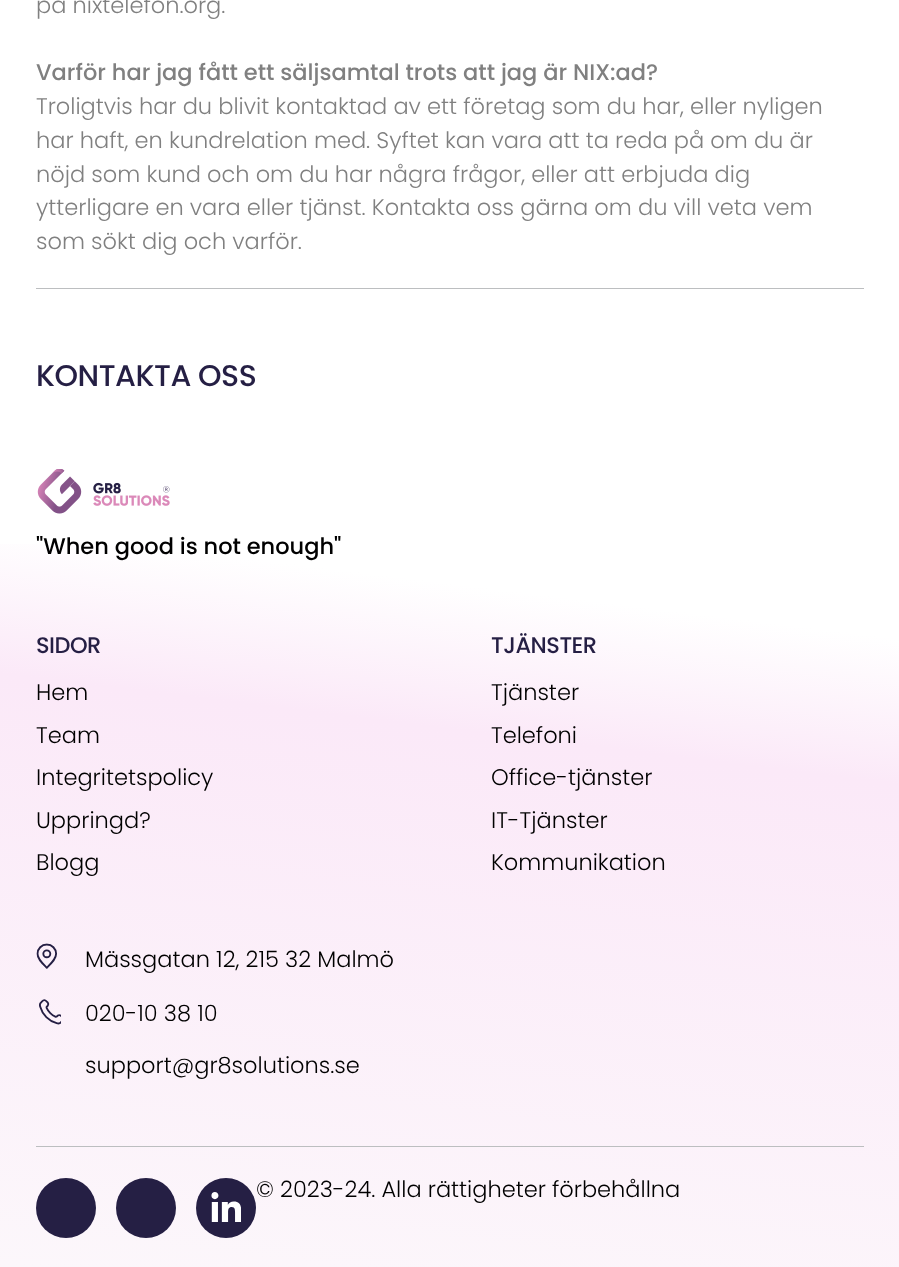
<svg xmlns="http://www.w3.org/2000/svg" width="899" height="1267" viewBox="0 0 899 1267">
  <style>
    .t1 { font: 300 22.5px Poppins; fill: #808080; }
    .t2 { font: 500 22.5px Poppins; fill: #808080; }
    .t3 { font: 500 30px Poppins; letter-spacing: -0.5px; fill: #251f44; }
    .t4 { font: 500 22.5px Poppins; fill: #000; }
    .t5 { font: 500 22.5px Poppins; letter-spacing: -0.5px; fill: #251f44; }
    .t6 { font: 300 22.5px Poppins; fill: #000; }
  </style>
  <defs>
    <linearGradient id="g1" gradientUnits="userSpaceOnUse" x1="518" y1="211" x2="382" y2="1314"><stop offset="0.34" stop-color="#fff"/><stop offset="0.47" stop-color="#fbe9f8"/><stop offset="1" stop-color="#fcf7fb"/></linearGradient>
  </defs>
  <rect width="100%" height="100%" fill="#fff"/>
  <text x="36" y="13" class="t1">på nixtelefon.org.</text>
  <text x="36" y="80" class="t2">Varför har jag fått ett säljsamtal trots att jag är NIX:ad?</text>
  <text x="36" y="114" class="t1">Troligtvis har du blivit kontaktad av ett företag som du har, eller nyligen</text>
  <text x="36" y="148" class="t1">har haft, en kundrelation med. Syftet kan vara att ta reda på om du är</text>
  <text x="36" y="182" class="t1">nöjd som kund och om du har några frågor, eller att erbjuda dig</text>
  <text x="36" y="215" class="t1">ytterligare en vara eller tjänst. Kontakta oss gärna om du vill veta vem</text>
  <text x="36" y="249" class="t1">som sökt dig och varför.</text>
  <rect x="0" y="544" width="899" height="723" fill="url(#g1)"/>
  <rect x="36" y="288" width="828" height="1" fill="#bcbec0"/>
  <text x="36" y="386" class="t3">KONTAKTA OSS</text>
  <image x="37" y="469" width="133" height="45" href="images/1.png"/>
  <text x="36" y="554" class="t4">"When good is not enough"</text>
  <text x="36" y="653" class="t5">SIDOR</text>
  <text x="36" y="700" class="t6">Hem</text>
  <text x="36" y="743" class="t6">Team</text>
  <text x="36" y="785" class="t6">Integritetspolicy</text>
  <text x="36" y="828" class="t6">Uppringd?</text>
  <text x="36" y="870" class="t6">Blogg</text>
  <text x="491" y="653" class="t5">TJÄNSTER</text>
  <text x="491" y="700" class="t6">Tjänster</text>
  <text x="491" y="743" class="t6">Telefoni</text>
  <text x="491" y="785" class="t6">Office-tjänster</text>
  <text x="491" y="828" class="t6">IT-Tjänster</text>
  <text x="491" y="870" class="t6">Kommunikation</text>
  <image x="36" y="943" width="21" height="26" href="images/2.png"/>
  <text x="85" y="967" class="t6">Mässgatan 12, 215 32 Malmö</text>
  <image x="39" y="999" width="22" height="26" href="images/3.png"/>
  <text x="85" y="1021" class="t6">020-10 38 10</text>
  <text x="85" y="1073" class="t6">support@gr8solutions.se</text>
  <rect x="36" y="1146" width="828" height="1" fill="#bcbec0"/>
  <circle cx="66" cy="1208" r="30" fill="#251f44"/>
  <circle cx="146" cy="1208" r="30" fill="#251f44"/>
  <circle cx="226" cy="1208" r="30" fill="#251f44"/>
  <image x="211" y="1192" width="30" height="30" href="images/4.png"/>
  <text x="256" y="1197" class="t6">© 2023-24. Alla rättigheter förbehållna</text>
</svg>
